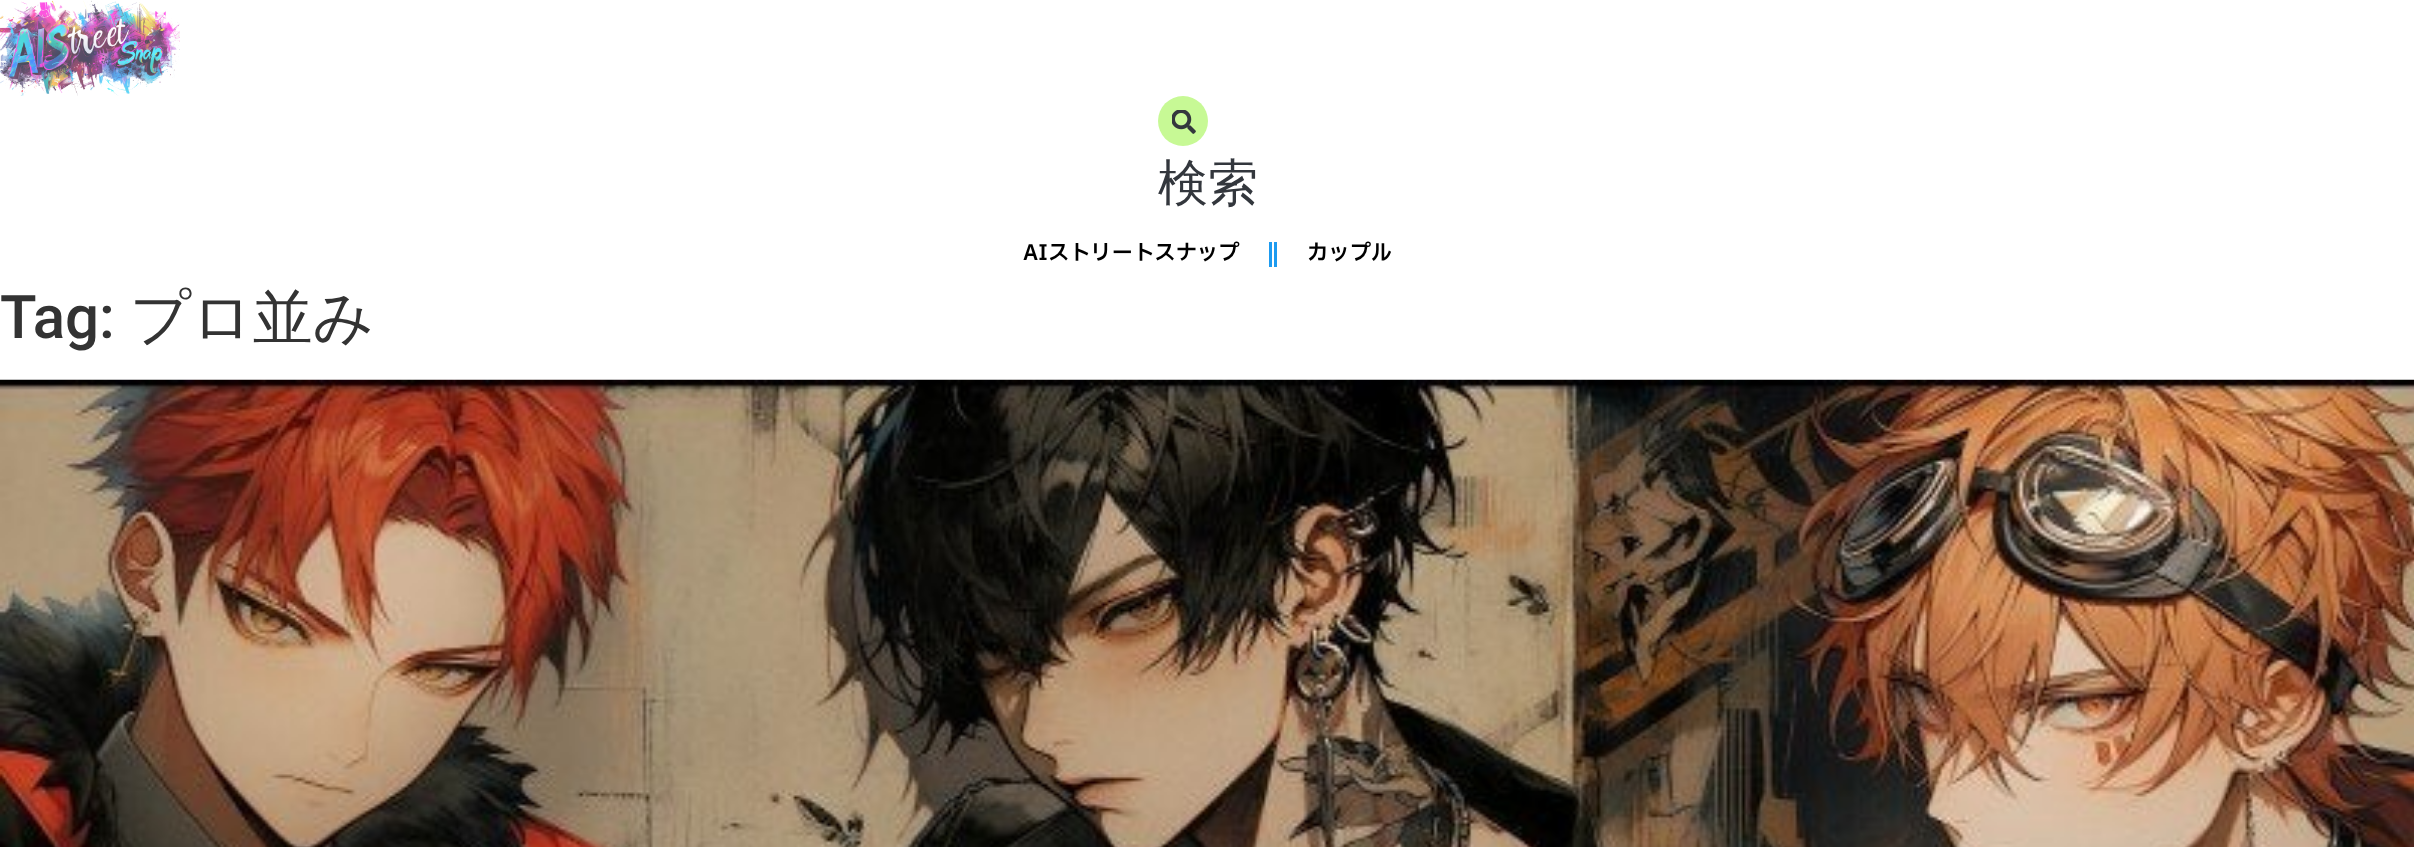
<svg xmlns="http://www.w3.org/2000/svg" width="2414" height="847" viewBox="0 0 2414 847">
  <style>
    .t1 { font: 500 50px WenQuanYi Zen Hei; fill: #33373d; }
    .t2 { font: 600 21.6px IBM Plex Sans JP; fill: #000; }
    .t3 { font: 500 60px Roboto; fill: #333; }
    .t4 { font: 500 60px WenQuanYi Zen Hei; fill: #333; }
  </style>
  <rect width="100%" height="100%" fill="#fff"/>
  <image x="0" y="0" width="180" height="96" href="images/1.png"/>
  <circle cx="1183" cy="121" r="25" fill="#c7f995"/>
  <image x="1172" y="110" width="24" height="24" href="images/2.png"/>
  <text x="1158" y="200" class="t1">検索</text>
  <text x="1023" y="260" class="t2">AIストリートスナップ</text>
  <rect x="1269" y="242" width="3" height="25" fill="#1d9bf0"/>
  <rect x="1274" y="242" width="3" height="25" fill="#1d9bf0"/>
  <text x="1307" y="260" class="t2">カップル</text>
  <text x="0" y="338" class="t3">Tag:</text>
  <text x="130" y="338" class="t4">プロ並み</text>
  <image x="0" y="379" width="2414" height="468" href="images/3.png"/>
</svg>
